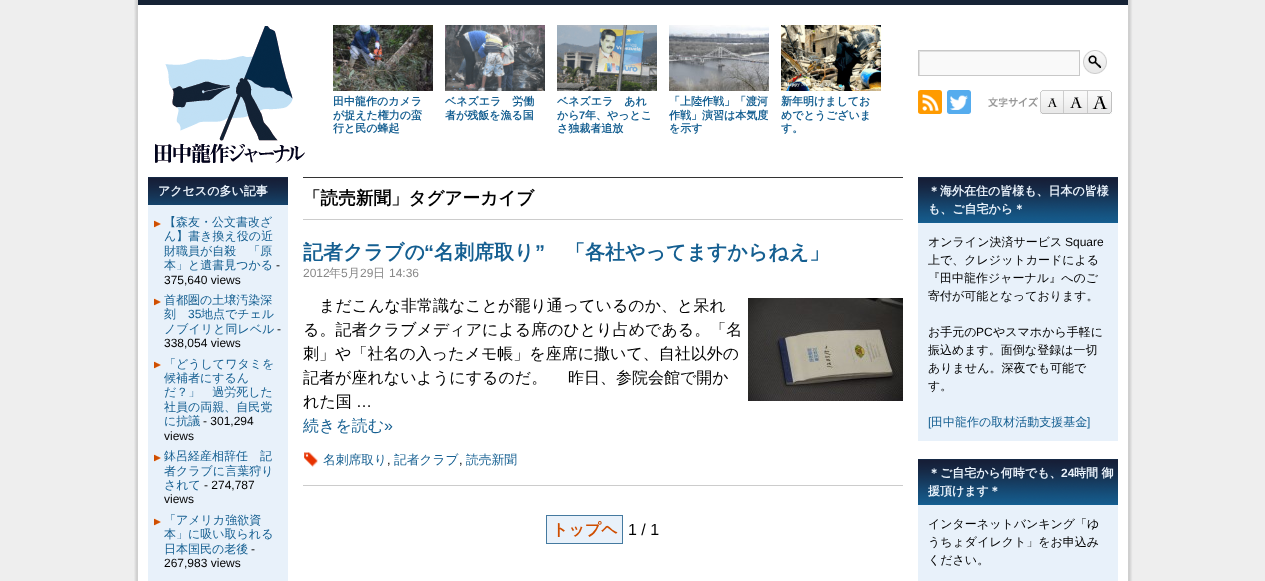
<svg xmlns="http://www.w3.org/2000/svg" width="1265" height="581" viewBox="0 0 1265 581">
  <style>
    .t1 { font: bold 11px WenQuanYi Zen Hei; fill: #155f91; }
    .t2 { font: bold 11px Liberation Sans; fill: #155f91; }
    .t3 { font: bold 12px WenQuanYi Zen Hei; fill: #e8f1fa; }
    .t4 { font: 500 12px WenQuanYi Zen Hei; fill: #155f91; }
    .t5 { font: 12px Liberation Sans; fill: #000; }
    .t6 { font: 12px Liberation Sans; fill: #155f91; }
    .t7 { font: bold 17.6px WenQuanYi Zen Hei; fill: #000; }
    .t8 { font: bold 20px WenQuanYi Zen Hei; fill: #155f91; }
    .t9 { font: bold 20px Liberation Sans; fill: #155f91; }
    .t10 { font: 12px Liberation Sans; fill: #888; }
    .t11 { font: 500 12px WenQuanYi Zen Hei; fill: #888; }
    .t12 { font: 500 16px WenQuanYi Zen Hei; fill: #000; }
    .t13 { font: 16px Liberation Sans; fill: #000; }
    .t14 { font: 500 16px WenQuanYi Zen Hei; fill: #155f91; }
    .t15 { font: 16px Liberation Sans; fill: #155f91; }
    .t16 { font: 500 12.75px WenQuanYi Zen Hei; fill: #155f91; }
    .t17 { font: 12.75px Liberation Sans; fill: #000; }
    .t18 { font: bold 16px WenQuanYi Zen Hei; fill: #cf4e00; }
    .t19 { font: 500 12px WenQuanYi Zen Hei; fill: #000; }
    .t20 { font: bold 12px Liberation Sans; fill: #e8f1fa; }
  </style>
  <defs>
    <clipPath id="clip1"><rect x="919" y="51" width="160" height="24"/></clipPath>
  </defs>
  <rect width="100%" height="100%" fill="#eee"/>
  <image x="133" y="0" width="1000" height="581" href="images/1.png"/>
  <rect x="138" y="0" width="990" height="5" fill="#162336"/>
  <image x="155" y="26" width="150" height="137" href="images/2.png"/>
  <rect x="920" y="52" width="159" height="23" fill="#f9f9f9"/>
  <g clip-path="url(#clip1)">
    <path d="M820-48H1178V174H820ZM920 52H1080V76H920Z" fill="#e0e0e0" fill-rule="evenodd"/>
  </g>
  <rect x="918.5" y="50.5" width="161" height="25" fill="none" stroke="#c8c8c8"/>
  <image x="1083" y="50" width="24" height="24" href="images/3.png"/>
  <image x="333" y="25" width="100" height="66" href="images/4.png"/>
  <text x="333" y="105" class="t1">田中龍作のカメラ</text>
  <text x="333" y="119" class="t1">が捉えた権力の蛮</text>
  <text x="333" y="132" class="t1">行と民の蜂起</text>
  <image x="445" y="25" width="100" height="66" href="images/5.png"/>
  <text x="445" y="105" class="t1">ベネズエラ　労働</text>
  <text x="445" y="119" class="t1">者が残飯を漁る国</text>
  <image x="557" y="25" width="100" height="66" href="images/6.png"/>
  <text x="557" y="105" class="t1">ベネズエラ　あれ</text>
  <text x="557" y="119" class="t1">から</text>
  <text x="579" y="119" class="t2">7</text>
  <text x="585" y="119" class="t1">年、やっとこ</text>
  <text x="557" y="132" class="t1">さ独裁者追放</text>
  <image x="669" y="25" width="100" height="66" href="images/7.png"/>
  <text x="669" y="105" class="t1">「上陸作戦」「渡河</text>
  <text x="669" y="119" class="t1">作戦」演習は本気度</text>
  <text x="669" y="132" class="t1">を示す</text>
  <image x="781" y="25" width="100" height="66" href="images/8.png"/>
  <text x="781" y="105" class="t1">新年明けましてお</text>
  <text x="781" y="119" class="t1">めでとうございま</text>
  <text x="781" y="132" class="t1">す。</text>
  <image x="918" y="90" width="24" height="24" href="images/9.png"/>
  <image x="947" y="90" width="24" height="24" href="images/10.png"/>
  <image x="988" y="97" width="50" height="10" href="images/11.png"/>
  <image x="1040" y="90" width="24" height="24" href="images/12.png"/>
  <image x="1064" y="90" width="24" height="24" href="images/13.png"/>
  <image x="1088" y="90" width="24" height="24" href="images/14.png"/>
  <rect x="148" y="205" width="140" height="376" fill="#e8f1fa"/>
  <image x="148" y="177" width="140" height="28" href="images/15.png"/>
  <text x="158" y="195" class="t3">アクセスの多い記事</text>
  <image x="154" y="220" width="7" height="8" href="images/16.png"/>
  <text x="164" y="226" class="t4">【森友・公文書改ざ</text>
  <text x="164" y="240" class="t4">ん】書き換え役の近</text>
  <text x="164" y="255" class="t4">財職員が自殺　「原</text>
  <text x="164" y="269" class="t4">本」と遺書見つかる</text>
  <text x="276" y="269" class="t5">-</text>
  <text x="164" y="284" class="t5">375,640 views</text>
  <image x="154" y="298" width="7" height="8" href="images/16.png"/>
  <text x="164" y="304" class="t4">首都圏の土壌汚染深</text>
  <text x="164" y="318" class="t4">刻</text>
  <text x="188" y="318" class="t6">35</text>
  <text x="201" y="318" class="t4">地点でチェル</text>
  <text x="164" y="333" class="t4">ノブイリと同レベル</text>
  <text x="277" y="333" class="t5">-</text>
  <text x="164" y="347" class="t5">338,054 views</text>
  <image x="154" y="361" width="7" height="8" href="images/16.png"/>
  <text x="164" y="368" class="t4">「どうしてワタミを</text>
  <text x="164" y="382" class="t4">候補者にするん</text>
  <text x="164" y="396" class="t4">だ？」　過労死した</text>
  <text x="164" y="411" class="t4">社員の両親、自民党</text>
  <text x="164" y="425" class="t4">に抗議</text>
  <text x="203" y="425" class="t5">- 301,294</text>
  <text x="164" y="440" class="t5">views</text>
  <image x="154" y="454" width="7" height="8" href="images/16.png"/>
  <text x="164" y="460" class="t4">鉢呂経産相辞任　記</text>
  <text x="164" y="475" class="t4">者クラブに言葉狩り</text>
  <text x="164" y="489" class="t4">されて</text>
  <text x="204" y="489" class="t5">- 274,787</text>
  <text x="164" y="503" class="t5">views</text>
  <image x="154" y="518" width="7" height="8" href="images/16.png"/>
  <text x="164" y="524" class="t4">「アメリカ強欲資</text>
  <text x="164" y="538" class="t4">本」に吸い取られる</text>
  <text x="164" y="553" class="t4">日本国民の老後</text>
  <text x="251" y="553" class="t5">-</text>
  <text x="164" y="567" class="t5">267,983 views</text>
  <rect x="303" y="177" width="600" height="1" fill="#333"/>
  <rect x="303" y="219" width="600" height="1" fill="#ccc"/>
  <text x="303" y="204" class="t7">「読売新聞」タグアーカイブ</text>
  <rect x="303" y="485" width="600" height="1" fill="#ccc"/>
  <text x="303" y="259" class="t8">記者クラブの</text>
  <text x="424" y="259" class="t9">“</text>
  <text x="434" y="259" class="t8">名刺席取り</text>
  <text x="535" y="259" class="t9">”</text>
  <text x="565" y="259" class="t8">「各社やってますからねえ」</text>
  <text x="303" y="277" class="t10">2012</text>
  <text x="329" y="277" class="t11">年</text>
  <text x="341" y="277" class="t10">5</text>
  <text x="348" y="277" class="t11">月</text>
  <text x="360" y="277" class="t10">29</text>
  <text x="373" y="277" class="t11">日</text>
  <text x="389" y="277" class="t10">14:36</text>
  <text x="319" y="311" class="t12">まだこんな非常識なことが罷り通っているのか、と呆れ</text>
  <text x="303" y="335" class="t12">る。記者クラブメディアによる席のひとり占めである。「名</text>
  <text x="303" y="359" class="t12">刺」や「社名の入ったメモ帳」を座席に撒いて、自社以外の</text>
  <text x="303" y="383" class="t12">記者が座れないようにするのだ。 　昨日、参院会館で開か</text>
  <text x="303" y="407" class="t12">れた国</text>
  <text x="356" y="407" class="t13">…</text>
  <text x="303" y="431" class="t14">続きを読む</text>
  <text x="384" y="431" class="t15">»</text>
  <image x="748" y="298" width="155" height="103" href="images/17.png"/>
  <image x="304" y="452" width="14" height="15" href="images/18.png"/>
  <text x="323" y="464" class="t16">名刺席取り</text>
  <text x="387" y="464" class="t17">,</text>
  <text x="394" y="464" class="t16">記者クラブ</text>
  <text x="459" y="464" class="t17">,</text>
  <text x="466" y="464" class="t16">読売新聞</text>
  <rect x="546.5" y="515.5" width="76" height="28" fill="#e8f1fa" stroke="#457aa0"/>
  <text x="552" y="535" class="t18">トップヘ</text>
  <text x="628" y="535" class="t13">1 / 1</text>
  <rect x="918" y="222" width="200" height="1" fill="#155f91"/>
  <image x="918" y="177" width="200" height="45" href="images/19.png"/>
  <text x="928" y="195" class="t3">＊海外在住の皆様も、日本の皆様</text>
  <text x="928" y="213" class="t3">も、ご自宅から＊</text>
  <rect x="918" y="223" width="200" height="218" fill="#e8f1fa"/>
  <text x="928" y="246" class="t19">オンライン決済サービス</text>
  <text x="1065" y="246" class="t5">Square</text>
  <text x="928" y="264" class="t19">上で、クレジットカードによる</text>
  <text x="928" y="282" class="t19">『田中龍作ジャーナル』へのご</text>
  <text x="928" y="300" class="t19">寄付が可能となっております。</text>
  <text x="928" y="336" class="t19">お手元の</text>
  <text x="976" y="336" class="t5">PC</text>
  <text x="993" y="336" class="t19">やスマホから手軽に</text>
  <text x="928" y="354" class="t19">振込めます。面倒な登録は一切</text>
  <text x="928" y="372" class="t19">ありません。深夜でも可能で</text>
  <text x="928" y="390" class="t19">す。</text>
  <text x="928" y="426" class="t6">[</text>
  <text x="931" y="426" class="t4">田中龍作の取材活動支援基金</text>
  <text x="1087" y="426" class="t6">]</text>
  <rect x="918" y="504" width="200" height="1" fill="#155f91"/>
  <image x="918" y="459" width="200" height="45" href="images/19.png"/>
  <text x="928" y="477" class="t3">＊ご自宅から何時でも、</text>
  <text x="1061" y="477" class="t20">24</text>
  <text x="1074" y="477" class="t3">時間 御</text>
  <text x="928" y="495" class="t3">援頂けます＊</text>
  <rect x="918" y="505" width="200" height="76" fill="#e8f1fa"/>
  <text x="928" y="528" class="t19">インターネットバンキング「ゆ</text>
  <text x="928" y="546" class="t19">うちょダイレクト」をお申込み</text>
  <text x="928" y="564" class="t19">ください。</text>
</svg>
